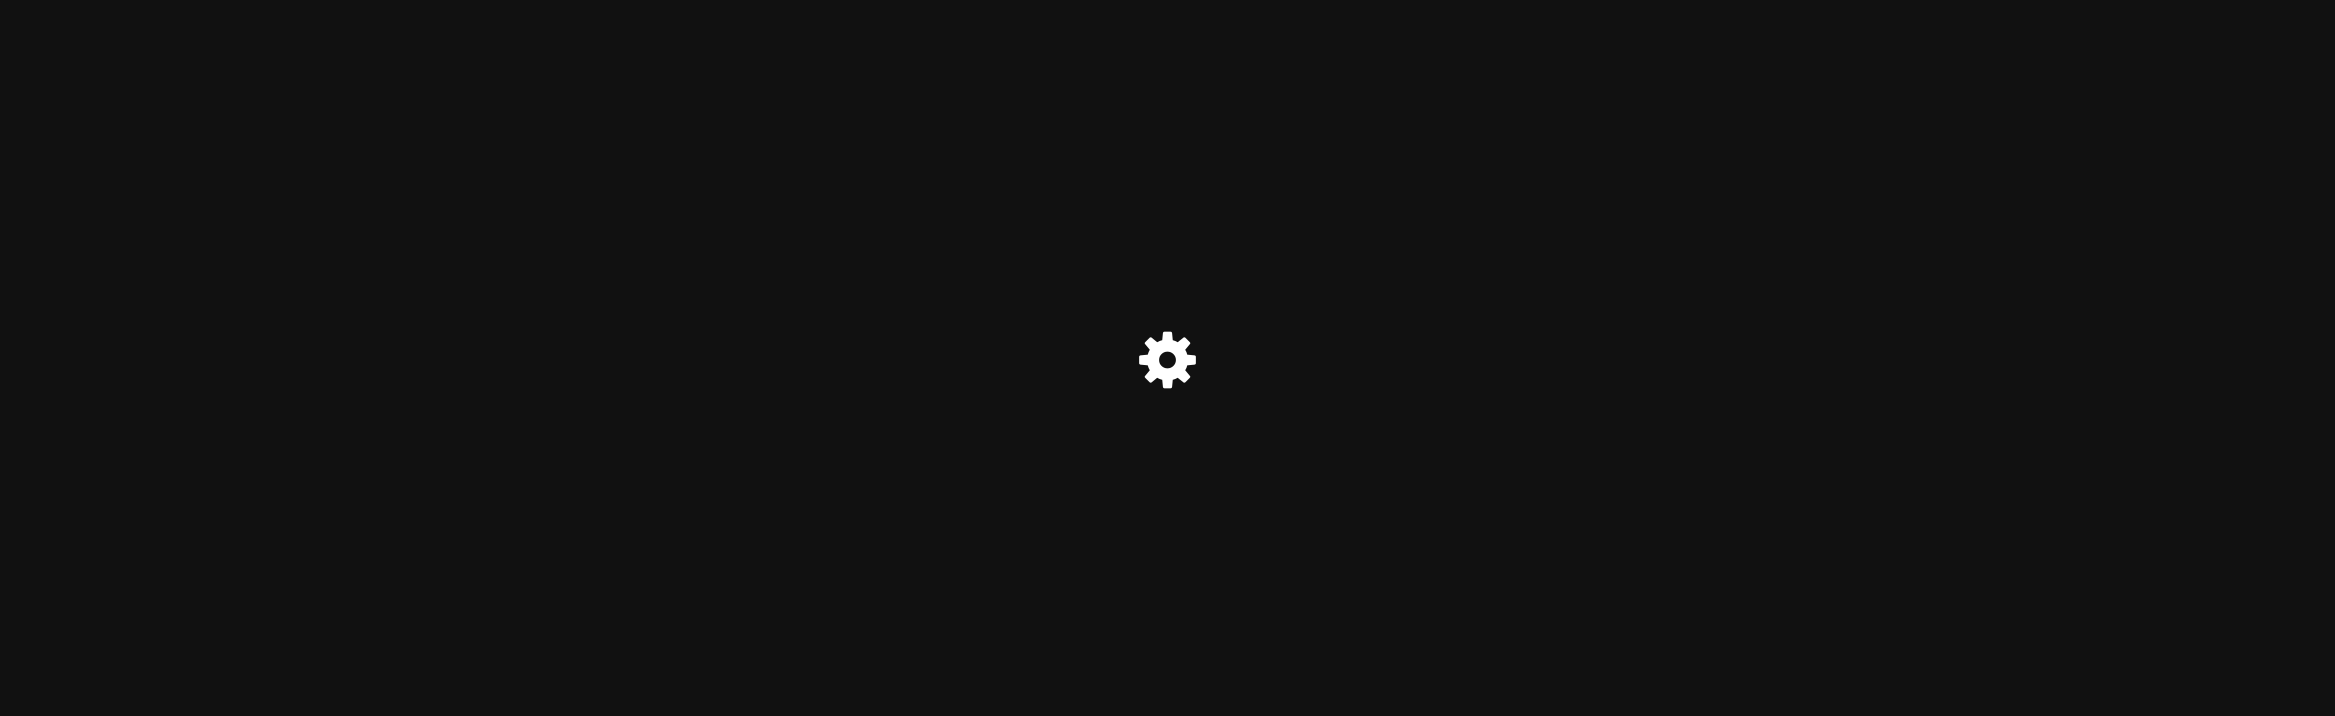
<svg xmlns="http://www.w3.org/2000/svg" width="2335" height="716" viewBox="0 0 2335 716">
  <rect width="100%" height="100%" fill="#111"/>
  <image x="1139" y="331" width="57" height="58" href="images/1.png"/>
</svg>
